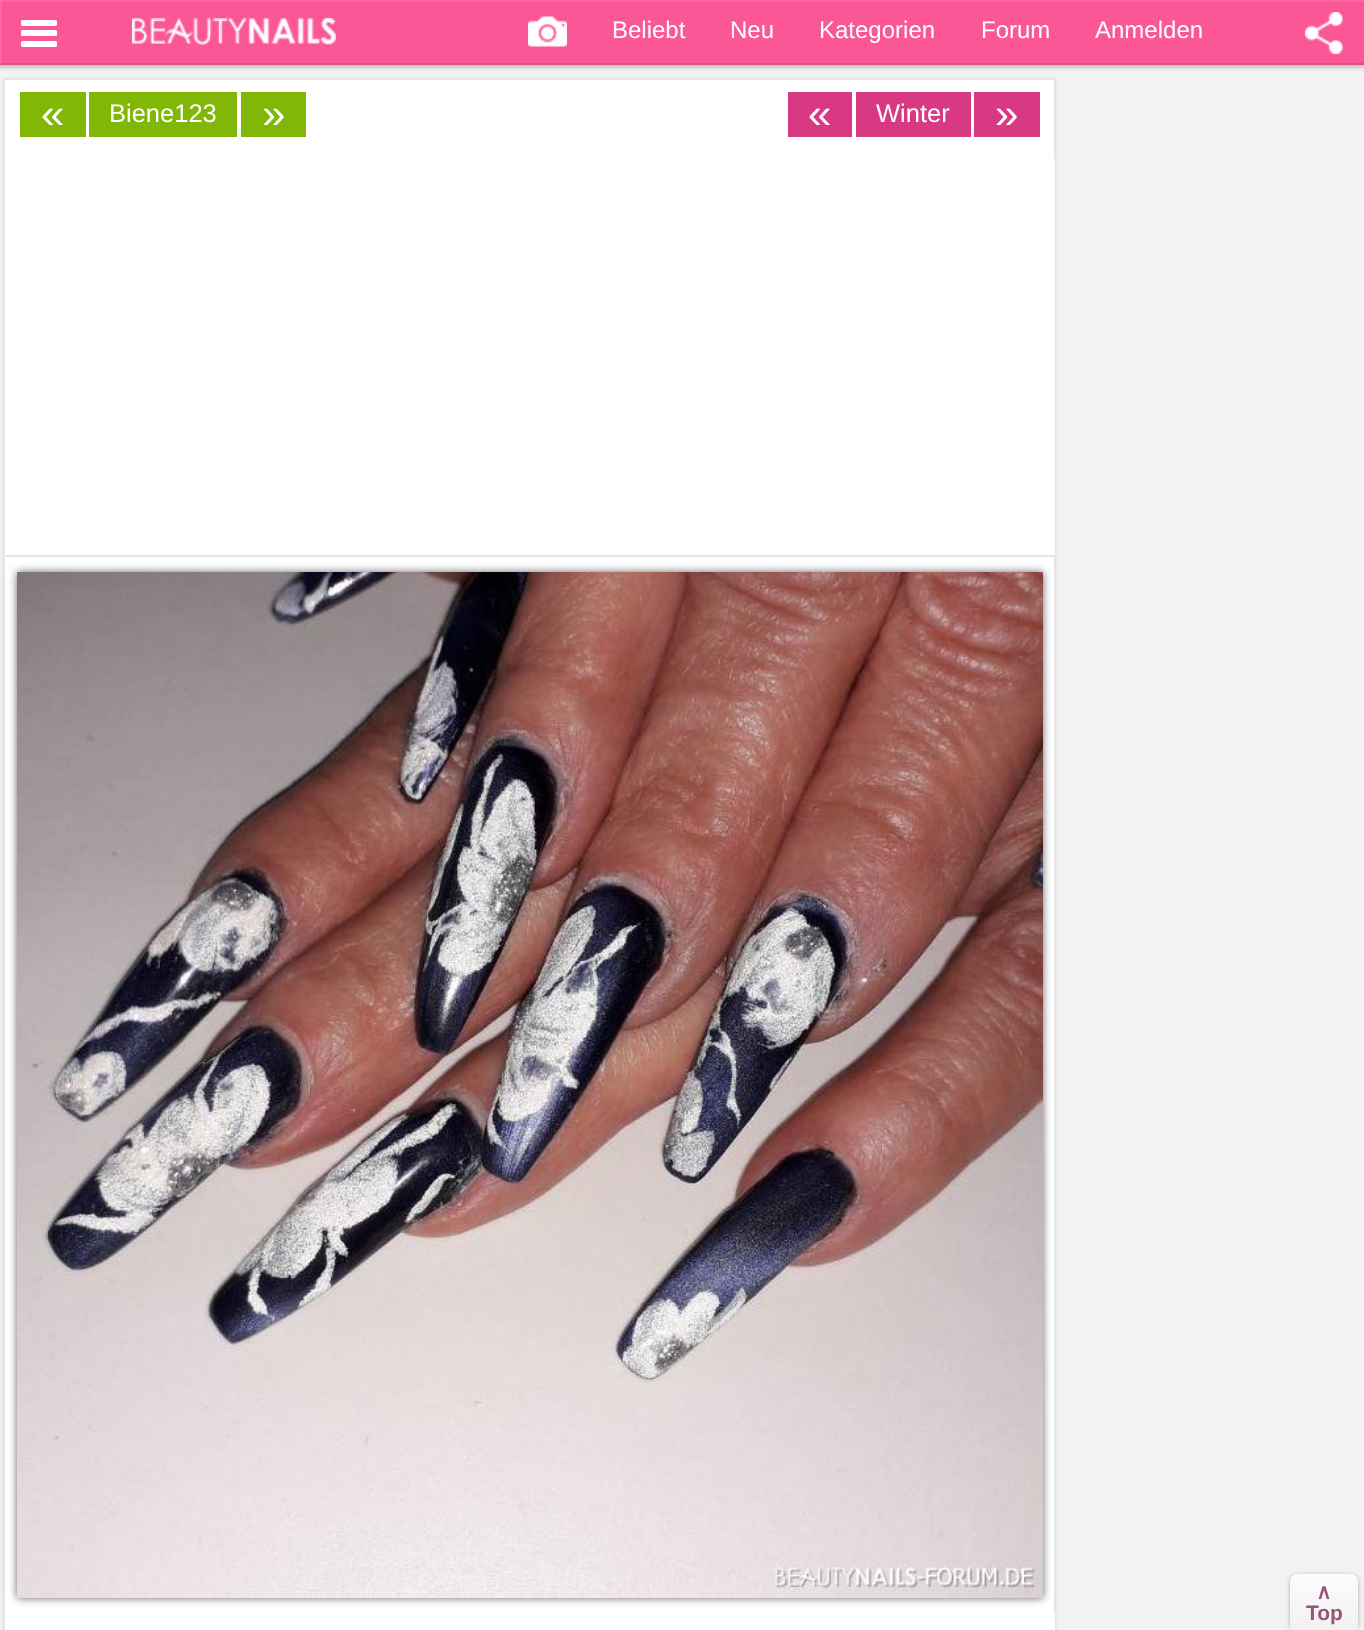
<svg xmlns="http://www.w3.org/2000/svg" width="1364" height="1630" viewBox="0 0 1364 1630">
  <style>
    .t1 { font: 24px Liberation Sans; fill: #fff; }
    .t2 { font: 42px Liberation Sans; fill: #fff; }
    .t3 { font: 25.5px Liberation Sans; fill: #fff; }
    .t4 { font: bold 21px DejaVu Sans; fill: #995579; }
    .t5 { font: bold 21px Liberation Sans; fill: #995579; }
  </style>
  <defs>
    <linearGradient id="g1" gradientUnits="userSpaceOnUse" x1="1324" y1="1574" x2="1324" y2="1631"><stop offset="0" stop-color="#fcfcfc"/><stop offset="1" stop-color="#f1f1f1"/></linearGradient>
  </defs>
  <rect width="100%" height="100%" fill="#f2f2f2"/>
  <rect x="0" y="69" width="1364" height="2" fill="#ebebeb"/>
  <rect x="0" y="68" width="1364" height="1" fill="#e1e1e1"/>
  <rect x="0" y="66" width="1364" height="2" fill="#d4d4d4"/>
  <rect x="0" y="65" width="1364" height="1" fill="#c4c4c4"/>
  <rect x="2" y="2" width="1362" height="61" fill="#fb5797"/>
  <rect x="0" y="0" width="1364" height="2" fill="#fb68a1"/>
  <rect x="0" y="0" width="2" height="65" fill="#fb68a1"/>
  <rect x="0" y="0" width="2" height="2" fill="#fb77aa"/>
  <rect x="0" y="63" width="1364" height="2" fill="#e24e88"/>
  <rect x="0" y="63" width="2" height="2" fill="#e56094"/>
  <rect x="21" y="20" width="36" height="6" rx="1.5" fill="#fff"/>
  <rect x="21" y="30" width="36" height="6" rx="1.5" fill="#fff"/>
  <rect x="21" y="41" width="36" height="6" rx="1.5" fill="#fff"/>
  <image x="132" y="18" width="204" height="27" href="images/1.png"/>
  <image x="528" y="16" width="39" height="31" href="images/2.png"/>
  <text x="612" y="38" class="t1">Beliebt</text>
  <text x="730" y="38" class="t1">Neu</text>
  <text x="819" y="38" class="t1">Kategorien</text>
  <text x="981" y="38" class="t1">Forum</text>
  <text x="1095" y="38" class="t1">Anmelden</text>
  <image x="1305" y="12" width="38" height="42" href="images/3.png"/>
  <rect x="3" y="80" width="1053" height="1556" fill="#00000014" filter="blur(2px)"/>
  <rect x="5" y="80" width="1049" height="1533" fill="#fff"/>
  <rect x="4" y="79" width="1051" height="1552" fill="none" stroke="#e5e5e5" stroke-width="2"/>
  <rect x="20" y="92" width="66" height="45" fill="#81b706"/>
  <text x="41" y="128" class="t2">«</text>
  <rect x="89" y="92" width="148" height="45" fill="#81b706"/>
  <text x="109" y="122" class="t3">Biene123</text>
  <rect x="241" y="92" width="65" height="45" fill="#81b706"/>
  <text x="262" y="128" class="t2">»</text>
  <rect x="788" y="92" width="64" height="45" fill="#d73a83"/>
  <text x="808" y="128" class="t2">«</text>
  <rect x="856" y="92" width="115" height="45" fill="#d73a83"/>
  <text x="876" y="122" class="t3">Winter</text>
  <rect x="974" y="92" width="66" height="45" fill="#d73a83"/>
  <text x="995" y="128" class="t2">»</text>
  <rect x="1054" y="159" width="1" height="396" fill="#fff"/>
  <rect x="5" y="555" width="1050" height="2" fill="#e5e5e5"/>
  <rect x="17" y="572" width="1026" height="1026" fill="#00000099" filter="blur(4.5px)"/>
  <image x="17" y="572" width="1026" height="1026" href="images/4.png"/>
  <rect x="5" y="1613" width="1050" height="17" fill="#fff"/>
  <rect x="1290" y="1575" width="68" height="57" rx="8" fill="#0000004d" filter="blur(2px)"/>
  <path d="M1298 1574H1350C1354.5 1574 1358 1577.5 1358 1582V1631H1290V1582C1290 1577.5 1293.5 1574 1298 1574Z" fill="url(#g1)"/>
  <text x="1316" y="1599" class="t4">∧</text>
  <text x="1306" y="1620" class="t5">Top</text>
</svg>
